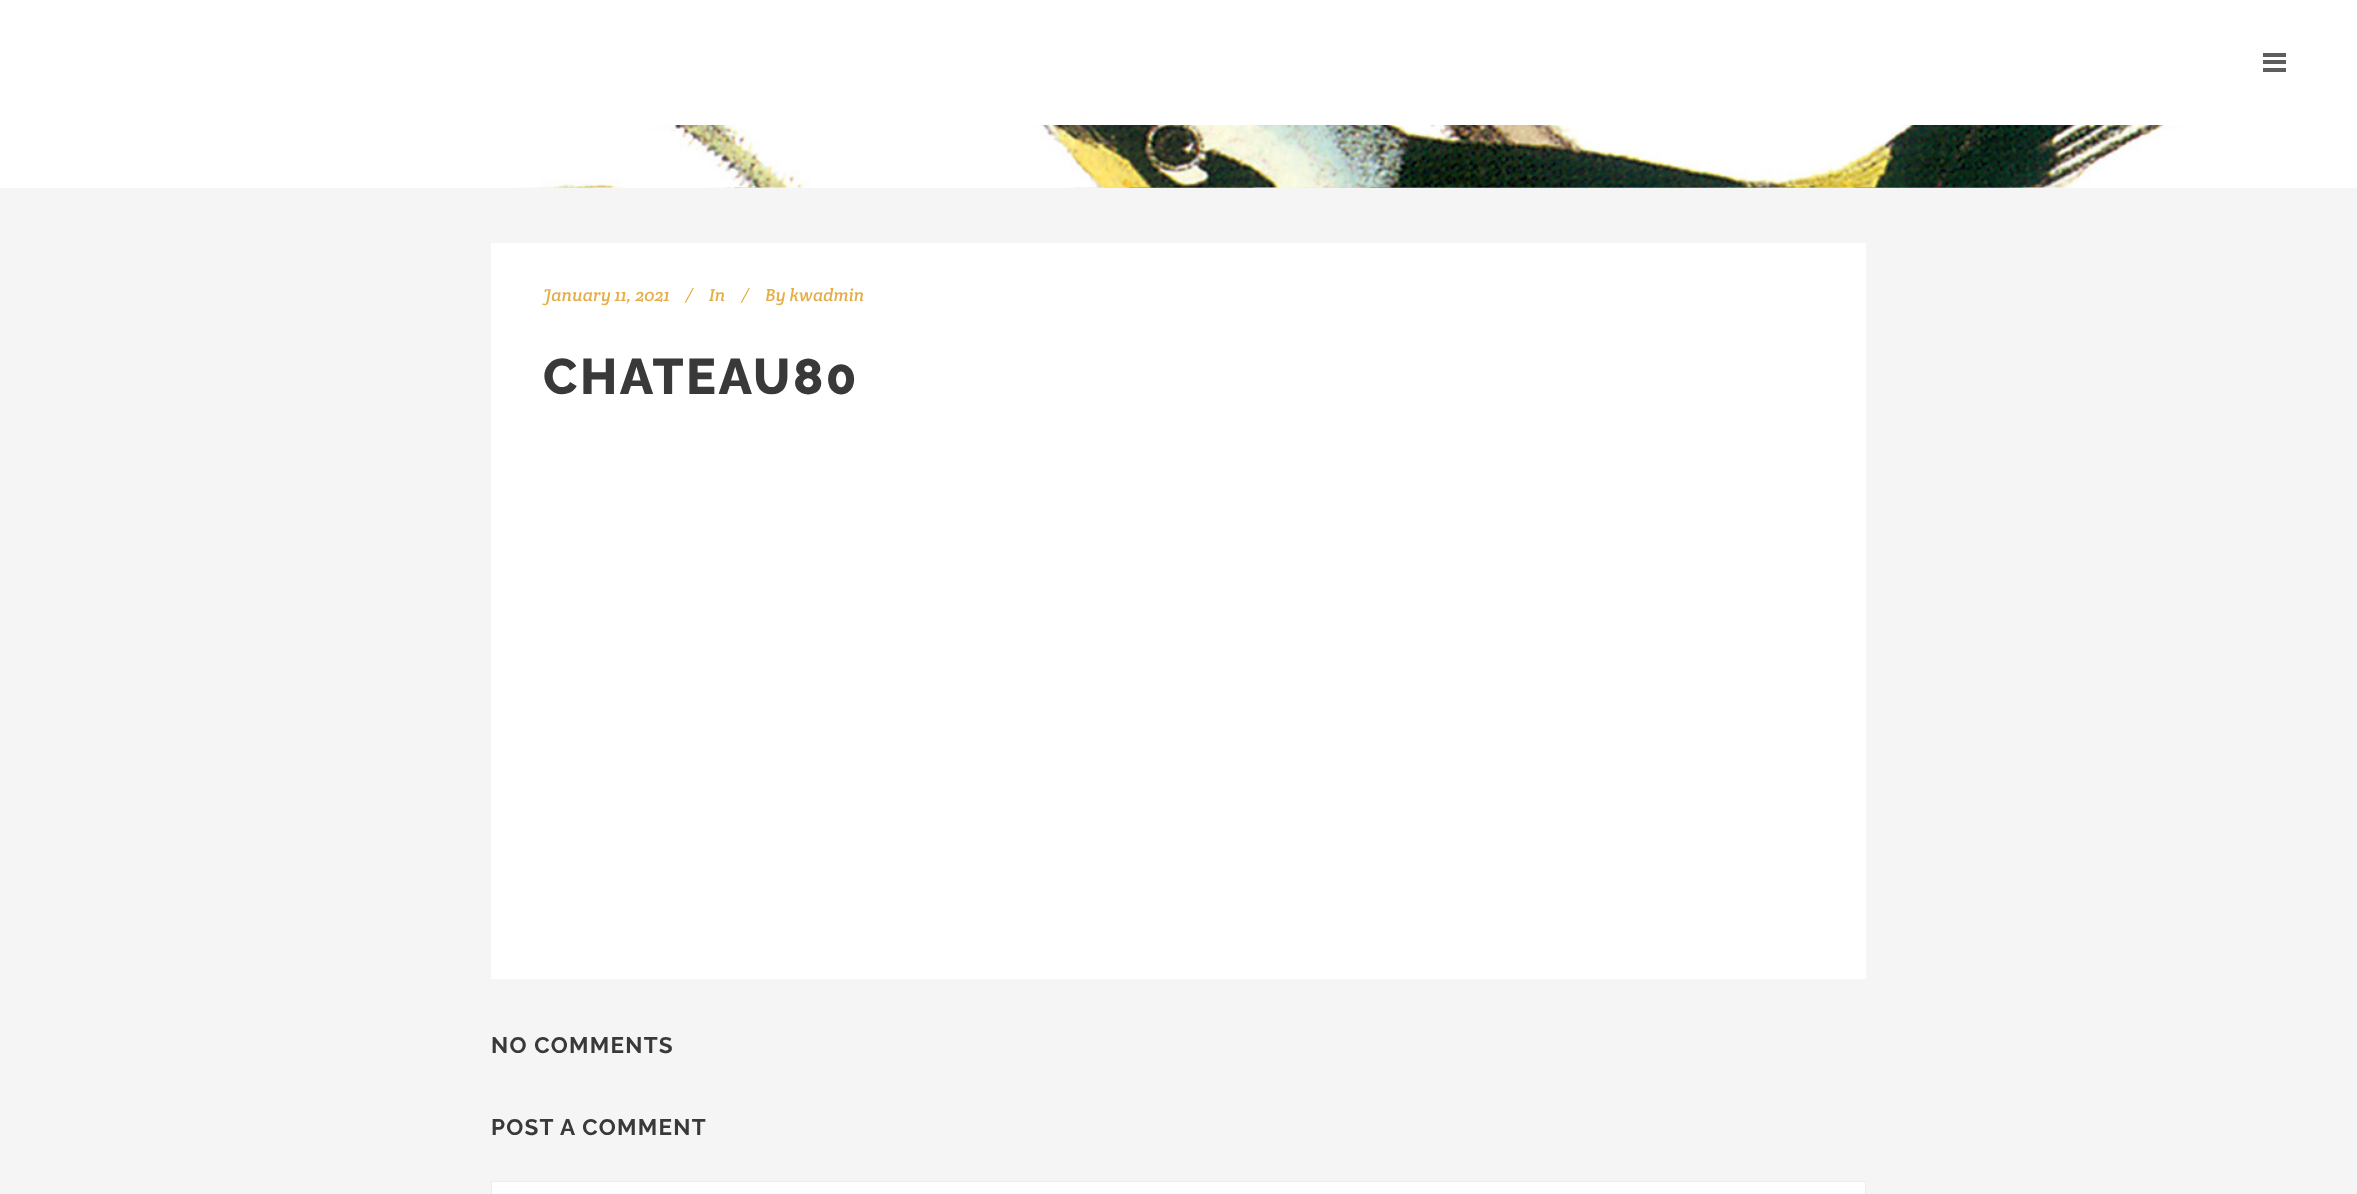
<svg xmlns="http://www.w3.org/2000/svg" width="2357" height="1194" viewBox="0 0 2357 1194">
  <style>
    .t1 { font: italic 17.5px Crete Round; fill: #e6ae48; }
    .t2 { font: 800 50px Raleway; letter-spacing: 2.5px; fill: #393939; }
    .t3 { font: bold 22.5px Raleway; letter-spacing: 1.25px; fill: #393939; }
  </style>
  <rect width="100%" height="100%" fill="#f5f5f5"/>
  <rect x="0" y="0" width="2357" height="125" fill="#fff"/>
  <rect x="2263" y="60" width="23" height="4" fill="#5d5d5d"/>
  <rect x="2263" y="53" width="23" height="4" fill="#5d5d5d"/>
  <rect x="2263" y="68" width="23" height="4" fill="#5d5d5d"/>
  <image x="0" y="187" width="2357" height="1" href="images/1.png"/>
  <image x="0" y="125" width="2357" height="63" href="images/2.png"/>
  <rect x="491" y="243" width="1375" height="736" fill="#fff"/>
  <text x="543" y="301" class="t1">January 11, 2021</text>
  <text x="685" y="301" class="t1">/</text>
  <text x="709" y="301" class="t1">In</text>
  <text x="741" y="301" class="t1">/</text>
  <text x="765" y="301" class="t1">By kwadmin</text>
  <text x="543" y="394" class="t2">CHATEAU80</text>
  <text x="491" y="1053" class="t3">NO COMMENTS</text>
  <text x="491" y="1135" class="t3">POST A COMMENT</text>
  <rect x="491.5" y="1181.5" width="1374" height="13" fill="#fff" stroke="#ededed"/>
</svg>
